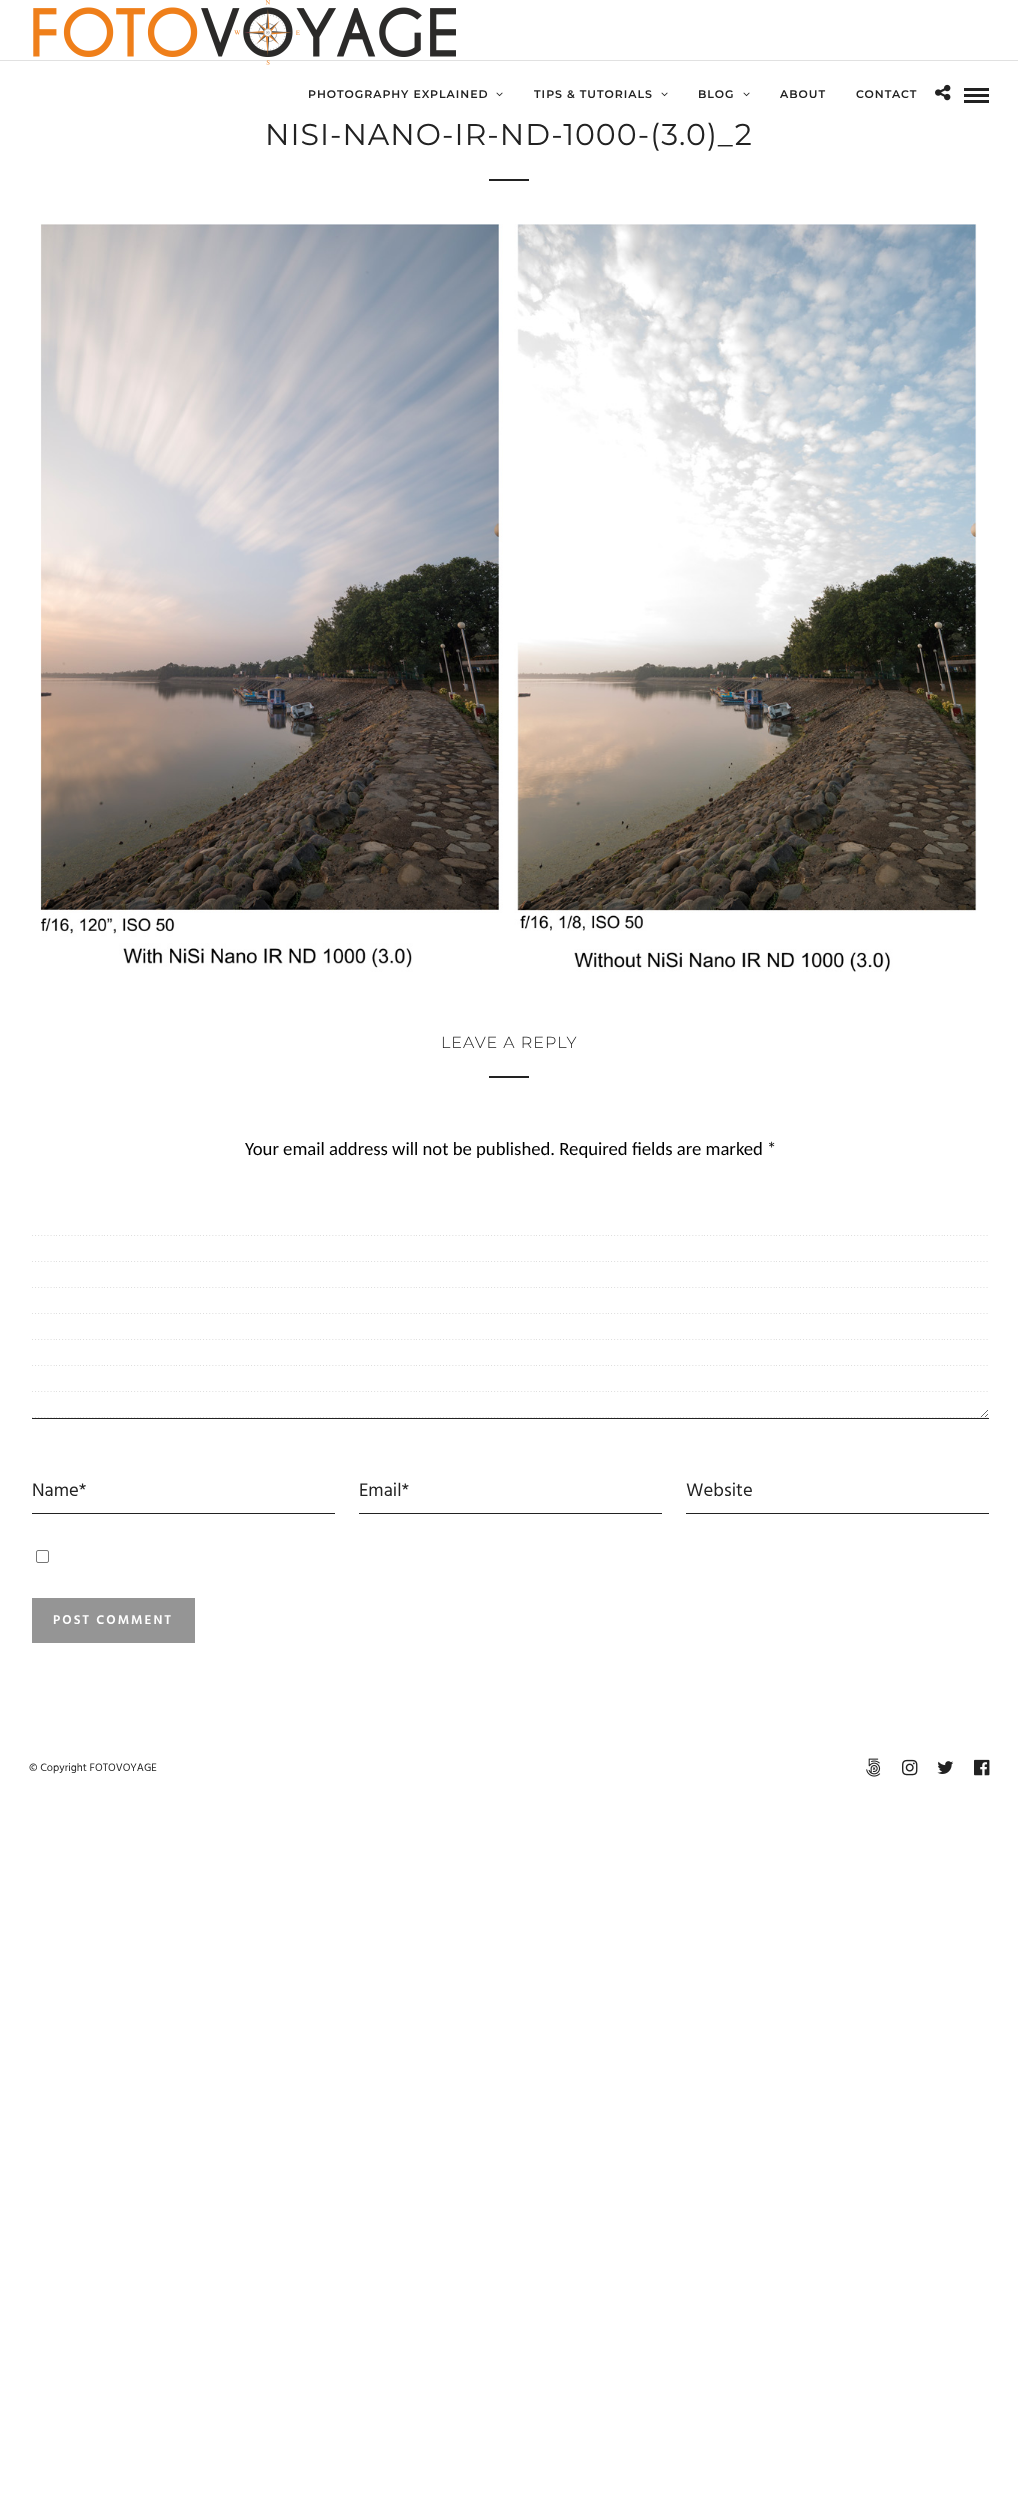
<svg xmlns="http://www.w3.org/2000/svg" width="1018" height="2502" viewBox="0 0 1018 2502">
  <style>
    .t1 { font: 600 11px Montserrat; letter-spacing: 1px; fill: #222; }
    .t2 { font: 30px Montserrat; letter-spacing: 1px; fill: #222; }
    .t3 { font: 300 16px Montserrat; letter-spacing: 1px; fill: #222; }
    .t4 { font: 18.7px Carlito; fill: #000; }
    .t5 { font: 18.7px Hind; fill: #222; }
    .t6 { font: 600 13px Hind; letter-spacing: 2px; fill: #fff; }
    .t7 { font: 11px Hind; fill: #222; }
  </style>
  <rect width="100%" height="100%" fill="#fff"/>
  <rect x="0" y="60" width="1018" height="1" fill="#e1e1e1"/>
  <image x="33" y="0" width="423" height="65" href="images/1.png"/>
  <text x="308" y="98" class="t1">PHOTOGRAPHY EXPLAINED</text>
  <image x="496" y="92" width="7" height="5" href="images/2.png"/>
  <text x="534" y="98" class="t1">TIPS &amp; TUTORIALS</text>
  <image x="661" y="92" width="7" height="5" href="images/2.png"/>
  <text x="698" y="98" class="t1">BLOG</text>
  <image x="743" y="92" width="7" height="5" href="images/2.png"/>
  <text x="780" y="98" class="t1">ABOUT</text>
  <text x="856" y="98" class="t1">CONTACT</text>
  <image x="935" y="84" width="16" height="17" href="images/3.png"/>
  <rect x="964" y="88" width="25" height="3" fill="#222"/>
  <rect x="964" y="94" width="25" height="3" fill="#222"/>
  <rect x="964" y="100" width="25" height="3" fill="#222"/>
  <text x="265" y="145" class="t2">NISI-NANO-IR-ND-1000-(3.0)_2</text>
  <rect x="489" y="179" width="40" height="2" fill="#222"/>
  <image x="40" y="224" width="937" height="748" href="images/4.png"/>
  <text x="441" y="1048" class="t3">LEAVE A REPLY</text>
  <rect x="489" y="1076" width="40" height="2" fill="#222"/>
  <text x="245" y="1155" class="t4">Your email address will not be published. Required fields are marked *</text>
  <image x="32" y="1235" width="956" height="183" href="images/5.png"/>
  <rect x="32" y="1418" width="957" height="1" fill="#222"/>
  <rect x="32" y="1513" width="303" height="1" fill="#222"/>
  <text x="32" y="1496" class="t5">Name*</text>
  <rect x="359" y="1513" width="303" height="1" fill="#222"/>
  <text x="359" y="1496" class="t5">Email*</text>
  <rect x="686" y="1513" width="303" height="1" fill="#222"/>
  <text x="686" y="1496" class="t5">Website</text>
  <rect x="36.5" y="1550.5" width="12" height="12" rx="1.5" fill="none" stroke="#767676"/>
  <rect x="32" y="1598" width="163" height="45" fill="#959595"/>
  <text x="53" y="1624" class="t6">POST COMMENT</text>
  <text x="29" y="1771" class="t7">© Copyright FOTOVOYAGE</text>
  <image x="866" y="1758" width="15" height="19" href="images/6.png"/>
  <image x="902" y="1759" width="16" height="17" href="images/7.png"/>
  <image x="937" y="1761" width="17" height="13" href="images/8.png"/>
  <image x="974" y="1759" width="16" height="17" href="images/9.png"/>
</svg>
